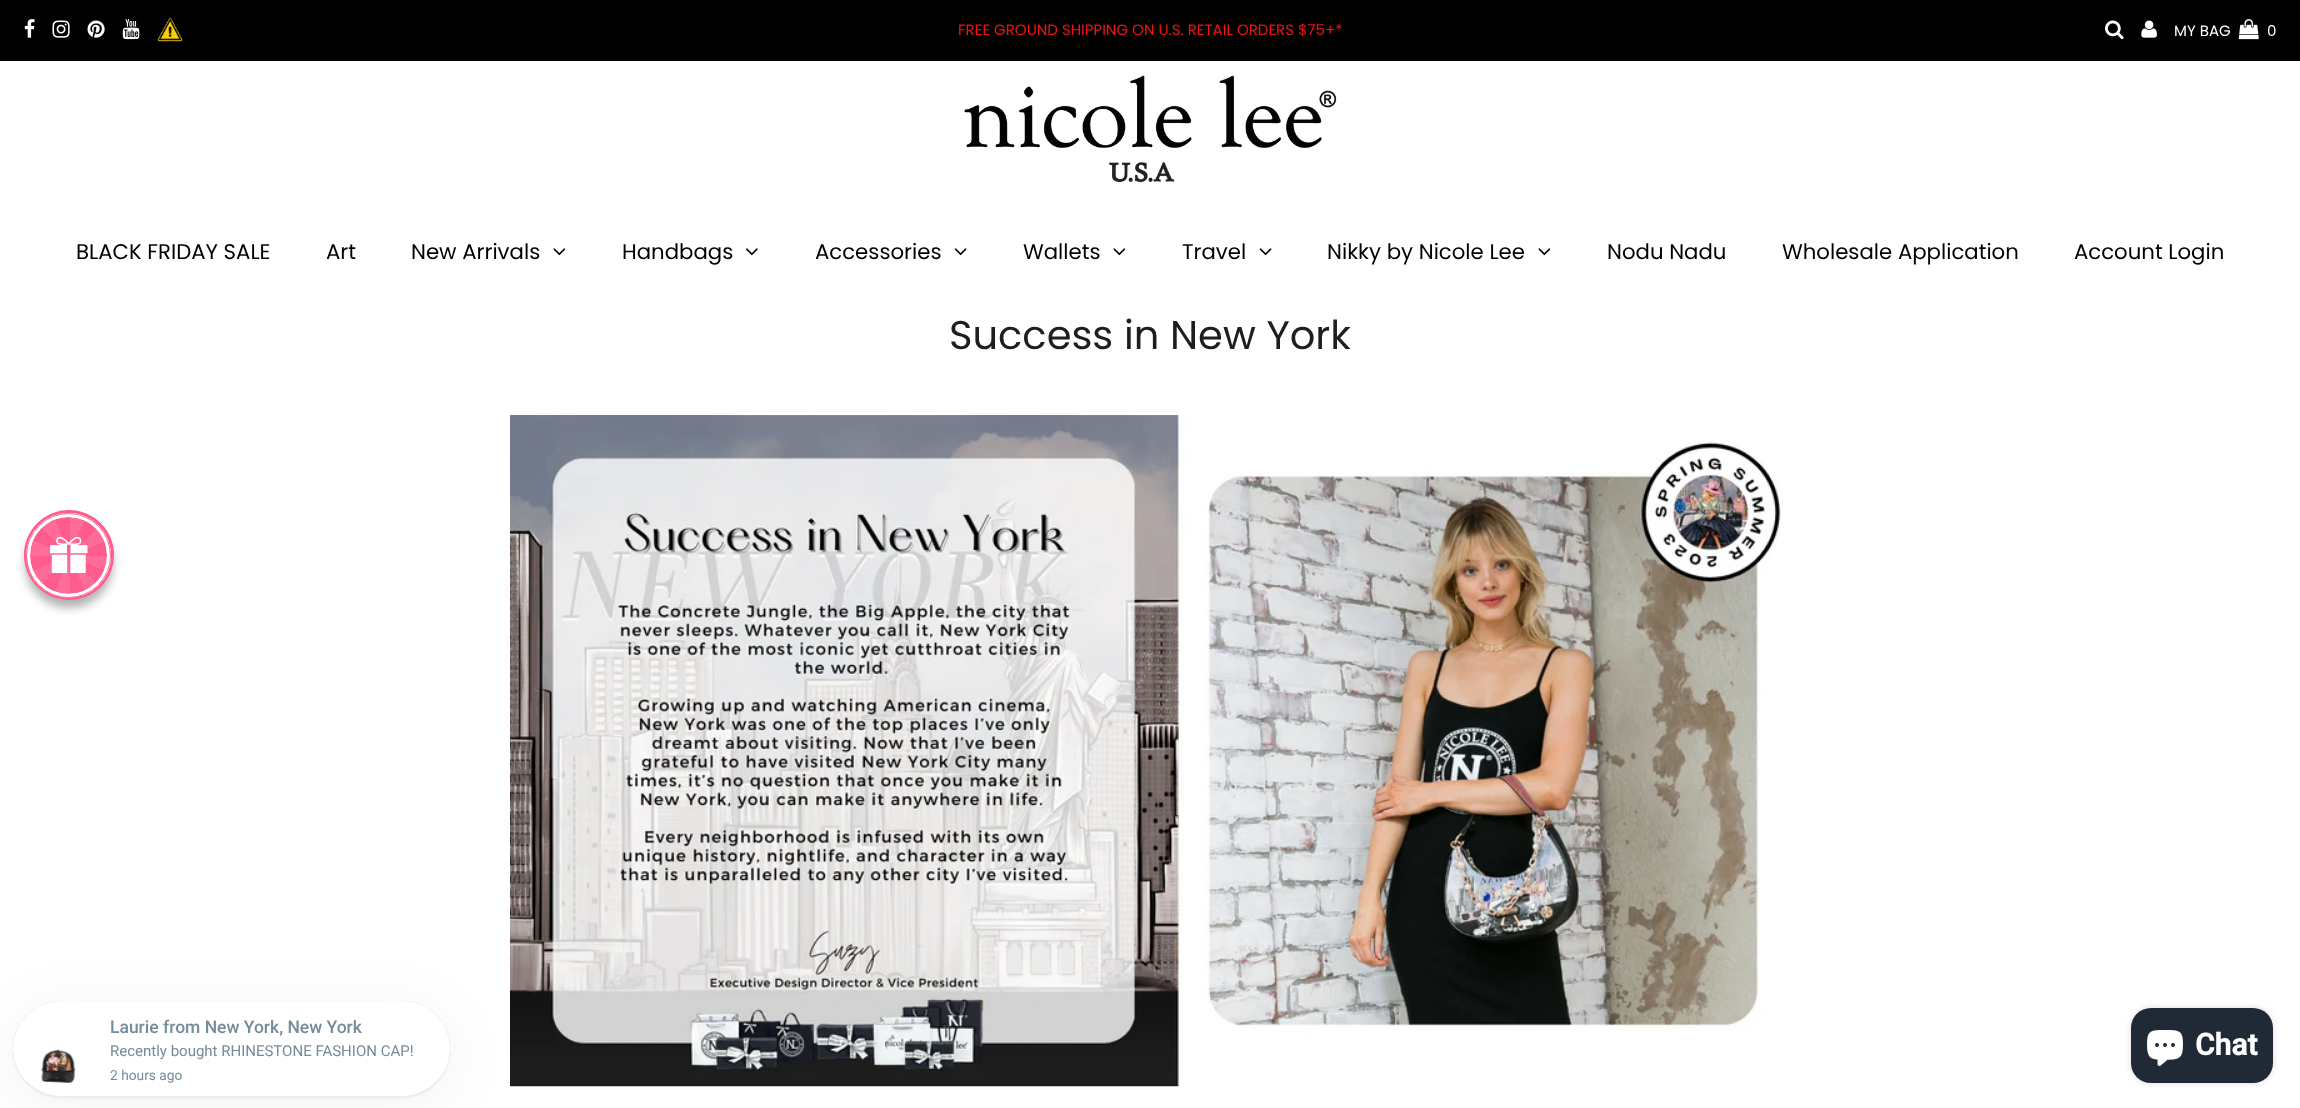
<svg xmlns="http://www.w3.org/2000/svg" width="2300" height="1108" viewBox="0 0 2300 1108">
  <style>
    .t1 { font: 15px Poppins; fill: #ef1515; }
    .t2 { font: 15px Poppins; fill: #fff; }
    .t3 { font: 21.25px Poppins; fill: #000; }
    .t4 { font: 40px Poppins; fill: #1e1e1e; }
    .t5 { font: 500 17.5px Roboto; fill: #738c98; }
    .t6 { font: 15px Roboto; fill: #738c98; }
    .t7 { font: 13.75px Roboto; fill: #738c98; }
    .t8 { font: bold 30px Roboto; fill: #fff; }
  </style>
  <rect width="100%" height="100%" fill="#fff"/>
  <rect x="0" y="0" width="2300" height="61" fill="#000"/>
  <image x="24" y="19" width="11" height="19" href="images/1.png"/>
  <image x="52" y="20" width="18" height="18" href="images/2.png"/>
  <image x="87" y="20" width="18" height="18" href="images/3.png"/>
  <image x="122" y="19" width="18" height="21" href="images/4.png"/>
  <image x="157" y="18" width="26" height="24" href="images/5.png"/>
  <text x="958" y="35" class="t1">FREE GROUND SHIPPING ON U.S. RETAIL ORDERS $75+*</text>
  <image x="2105" y="20" width="19" height="20" href="images/6.png"/>
  <image x="2141" y="20" width="16" height="18" href="images/7.png"/>
  <text x="2174" y="36" class="t2">MY BAG</text>
  <image x="2238" y="19" width="21" height="21" href="images/8.png"/>
  <text x="2267" y="36" class="t2">0</text>
  <image x="964" y="75" width="373" height="108" href="images/9.png"/>
  <text x="76" y="259" class="t3">BLACK FRIDAY SALE</text>
  <text x="326" y="259" class="t3">Art</text>
  <text x="411" y="259" class="t3">New Arrivals</text>
  <image x="553" y="248" width="13" height="8" href="images/10.png"/>
  <text x="622" y="259" class="t3">Handbags</text>
  <image x="746" y="248" width="12" height="8" href="images/11.png"/>
  <text x="815" y="259" class="t3">Accessories</text>
  <image x="954" y="248" width="13" height="8" href="images/12.png"/>
  <text x="1023" y="259" class="t3">Wallets</text>
  <image x="1113" y="248" width="13" height="8" href="images/10.png"/>
  <text x="1182" y="259" class="t3">Travel</text>
  <image x="1259" y="248" width="13" height="8" href="images/12.png"/>
  <text x="1327" y="259" class="t3">Nikky by Nicole Lee</text>
  <image x="1538" y="248" width="13" height="8" href="images/10.png"/>
  <text x="1607" y="259" class="t3">Nodu Nadu</text>
  <text x="1782" y="259" class="t3">Wholesale Application</text>
  <text x="2074" y="259" class="t3">Account Login</text>
  <text x="949" y="349" class="t4">Success in New York</text>
  <image x="510" y="415" width="1271" height="672" href="images/13.png"/>
  <rect x="25" y="520" width="88" height="88" rx="44" fill="#0000004d" filter="blur(5px)"/>
  <rect x="24" y="510" width="90" height="90" rx="45" fill="#ff5c8e" filter="blur(0.5px)"/>
  <circle cx="69" cy="555" r="44" fill="#ff5c8e"/>
  <circle cx="68.5" cy="555.5" r="40.5" fill="none" stroke="#fff" stroke-width="4"/>
  <circle cx="68.5" cy="555.5" r="40.5" fill="none" stroke="#fff" stroke-width="4"/>
  <circle cx="68.5" cy="555.5" r="42" fill="none" stroke="#ff5c8e"/>
  <circle cx="69" cy="555" r="43.5" fill="none" stroke="#ff5c8e"/>
  <path d="M54 516C48 518 43 521 39 525L70 556L29 539C27 544 26 550 26 556H70L30 572C32 578 35 583 39 587L70 556L53 595C59 597 64 598 70 598V556L86 594C91 592 95 589 99 585L70 556L108 572C110 567 111 562 111 556H70L108 540C106 535 103 530 100 526L70 556L86 517C81 515 76 513 70 513V556Z" fill="#ffffff1a"/>
  <image x="50" y="537" width="38" height="36" href="images/14.png"/>
  <rect x="13" y="1011" width="437" height="95" rx="47.5" fill="#0000000d" filter="blur(31px)"/>
  <rect x="13" y="1003" width="437" height="95" rx="47.5" fill="#0000000d" filter="blur(1px)"/>
  <rect x="13" y="1001" width="437" height="95" rx="47.5" fill="#00000033" filter="blur(0.5px)"/>
  <rect x="13" y="1001" width="437" height="95" rx="47.5" fill="#fff"/>
  <image x="41" y="1049" width="35" height="34" href="images/15.png"/>
  <text x="110" y="1033" class="t5">Laurie from New York, New York</text>
  <text x="110" y="1056" class="t6">Recently bought RHINESTONE FASHION CAP!</text>
  <text x="110" y="1080" class="t7">2 hours ago</text>
  <rect x="2131" y="1008" width="142" height="75" rx="20" fill="#00000026" filter="blur(3px)"/>
  <rect x="2131" y="1008" width="142" height="75" rx="20" fill="#202a36"/>
  <image x="2147" y="1030" width="36" height="36" href="images/16.png"/>
  <text x="2195" y="1055" class="t8">Chat</text>
</svg>
